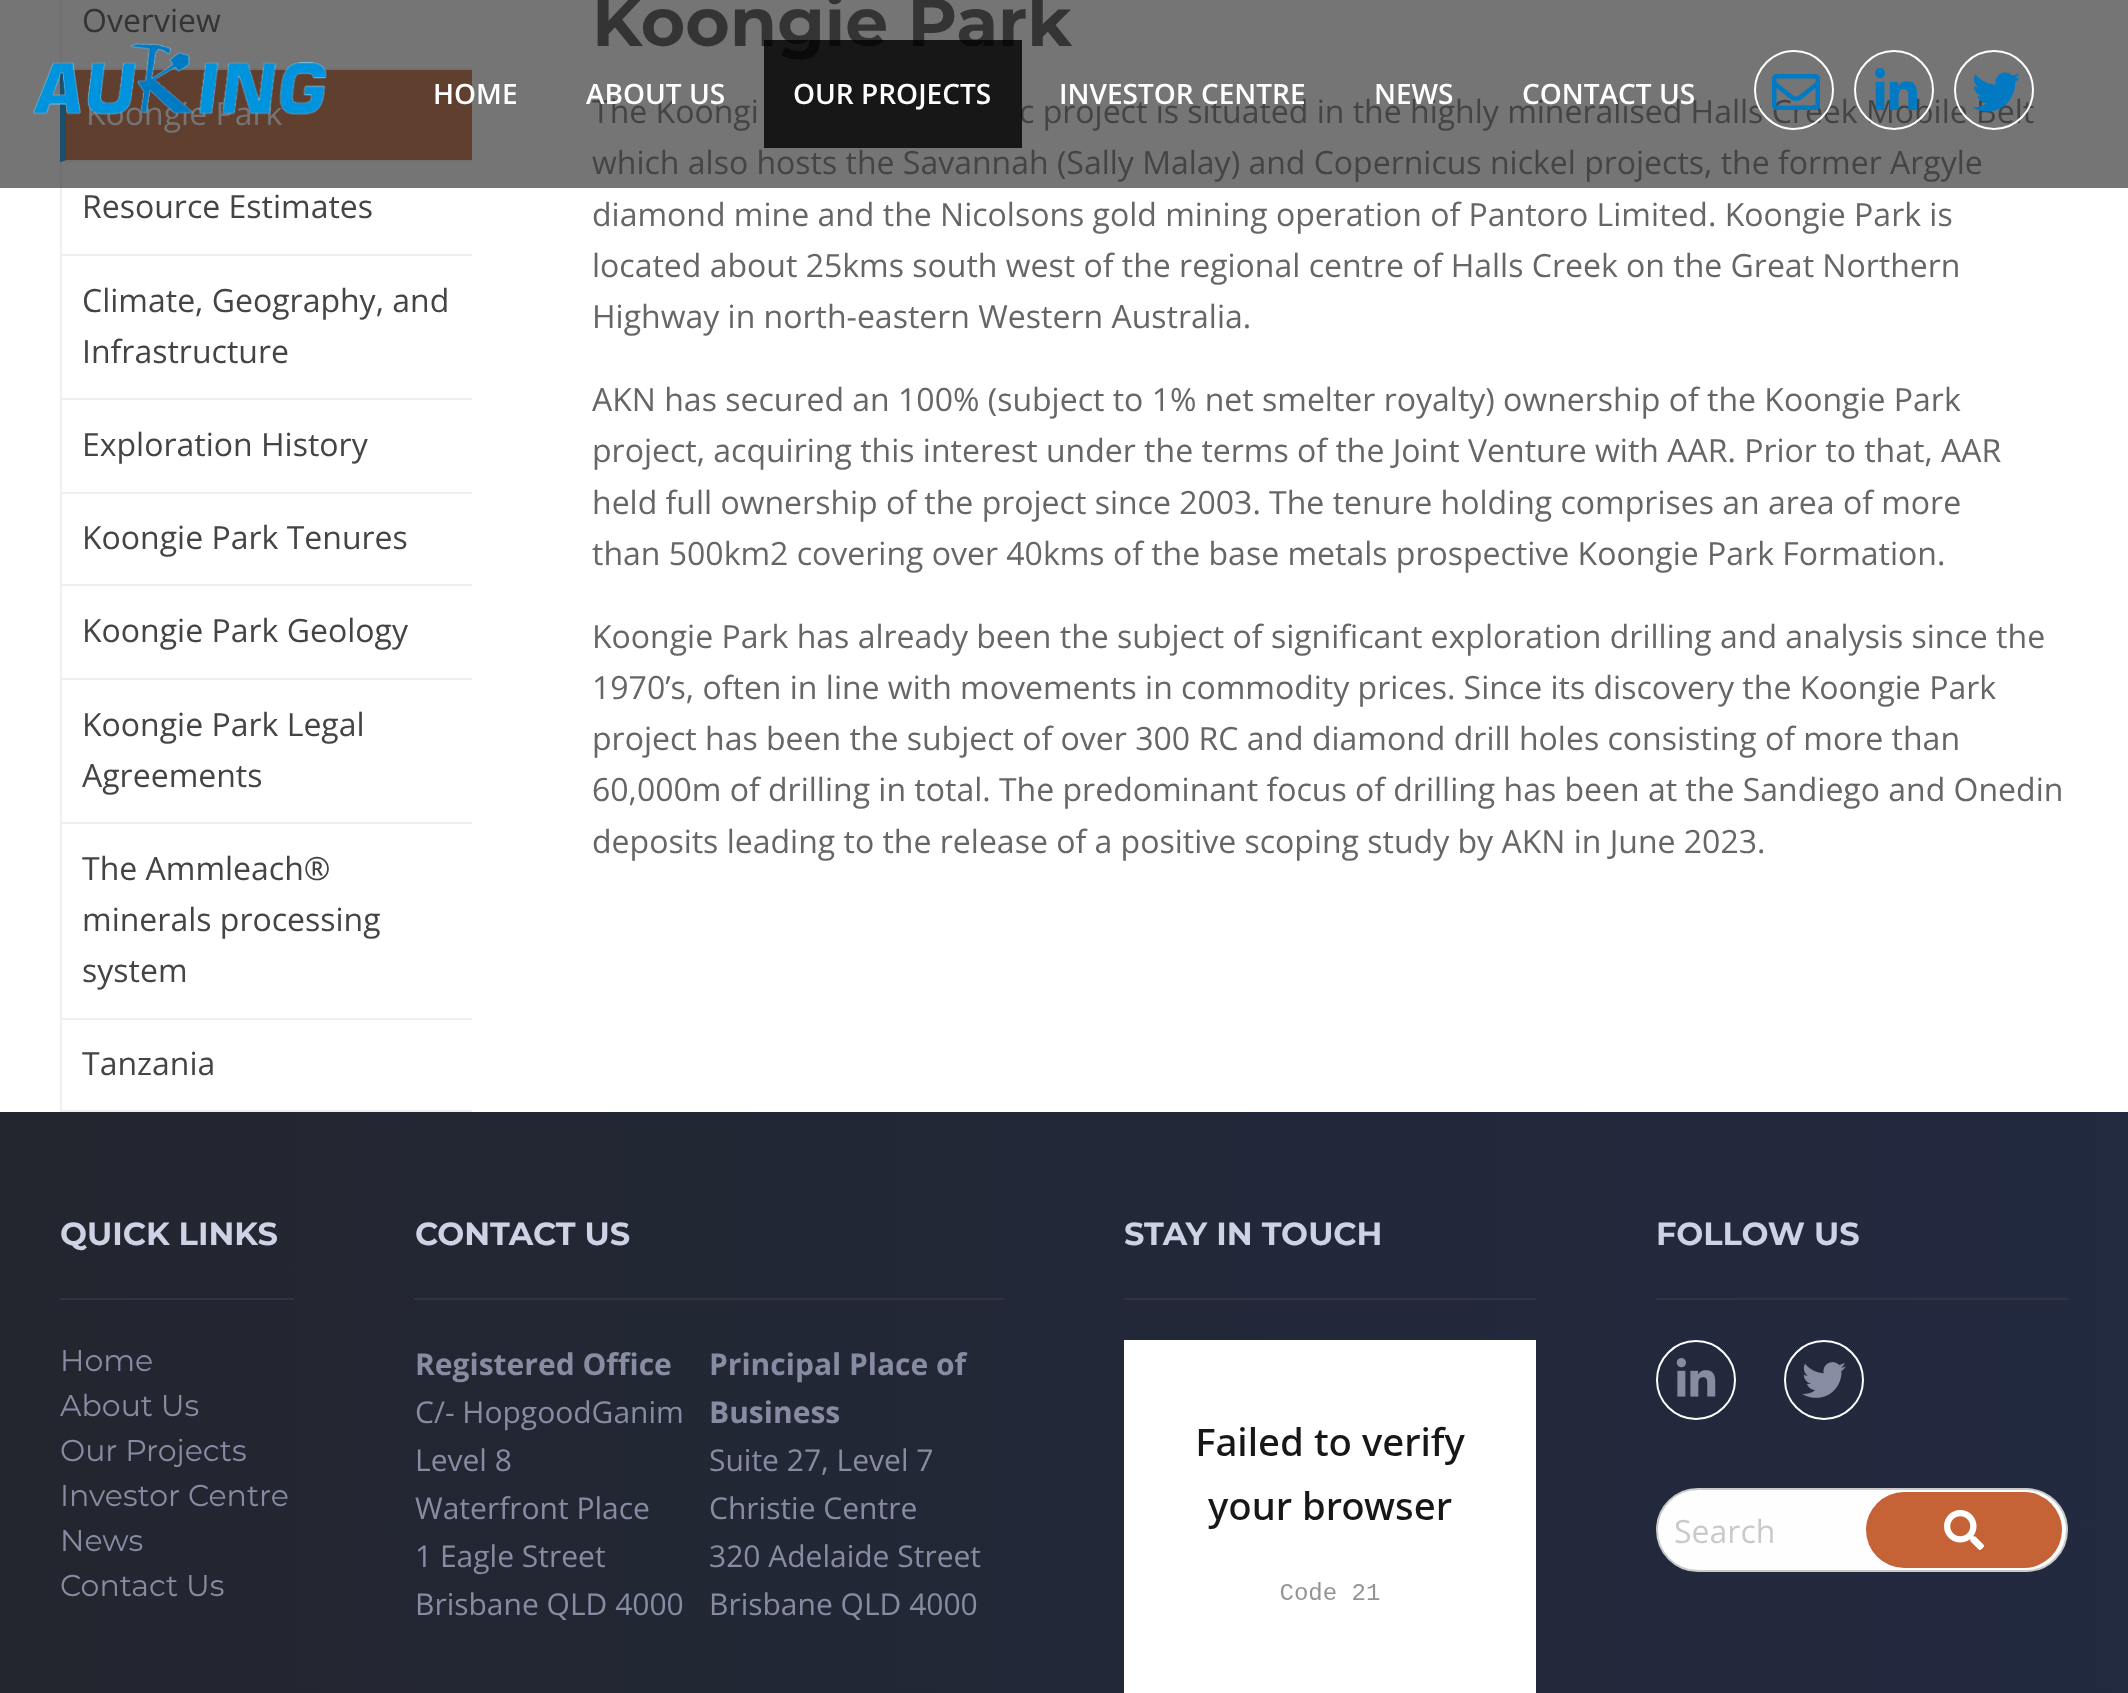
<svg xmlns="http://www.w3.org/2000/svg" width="2128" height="1693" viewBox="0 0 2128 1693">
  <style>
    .t1 { font: 32px Open Sans; fill: #343434; }
    .t2 { font: 32px Open Sans; fill: #757575; }
    .t3 { font: 32px Open Sans; fill: #444; }
    .t4 { font: bold 68px Montserrat; fill: #343434; }
    .t5 { font: 32px Open Sans; fill: #666; }
    .t6 { font: 600 28px Open Sans; fill: #fff; }
    .t7 { font: bold 32px Montserrat; fill: #cdd2e5; }
    .t8 { font: 30px Montserrat; fill: #888ca2; }
    .t9 { font: bold 30px Open Sans; fill: #888ca2; }
    .t10 { font: 30px Open Sans; fill: #888ca2; }
    .t11 { font: 32px Open Sans; fill: #cacaca; }
  </style>
  <defs>
    <linearGradient id="g1" gradientUnits="userSpaceOnUse" x1="0" y1="1680" x2="2128" y2="1680"><stop offset="0" stop-color="#23262f"/><stop offset="1" stop-color="#222a40"/></linearGradient>
  </defs>
  <rect width="100%" height="100%" fill="#fff"/>
  <rect x="0" y="0" width="2128" height="188" fill="#757575"/>
  <rect x="72" y="68" width="400" height="2" fill="#707070"/>
  <rect x="60" y="0" width="2" height="70" fill="#707070"/>
  <text x="82" y="32" class="t1">Overview</text>
  <rect x="60" y="70" width="412" height="92" fill="#613f2f"/>
  <path d="M472 162H60L66 160H472Z" fill="#707070"/>
  <path d="M60 162V70H66V160Z" fill="#1c506a"/>
  <text x="86" y="125" class="t2">Koongie Park</text>
  <rect x="60" y="254" width="412" height="2" fill="#efefef"/>
  <rect x="60" y="188" width="2" height="68" fill="#efefef"/>
  <rect x="60" y="162" width="2" height="26" fill="#707070"/>
  <text x="82" y="218" class="t3">Resource Estimates</text>
  <rect x="60" y="398" width="412" height="2" fill="#efefef"/>
  <rect x="60" y="256" width="2" height="144" fill="#efefef"/>
  <text x="82" y="312" class="t3">Climate, Geography, and</text>
  <text x="82" y="363" class="t3">Infrastructure</text>
  <rect x="60" y="492" width="412" height="2" fill="#efefef"/>
  <rect x="60" y="400" width="2" height="94" fill="#efefef"/>
  <text x="82" y="456" class="t3">Exploration History</text>
  <rect x="60" y="584" width="412" height="2" fill="#efefef"/>
  <rect x="60" y="494" width="2" height="92" fill="#efefef"/>
  <text x="82" y="549" class="t3">Koongie Park Tenures</text>
  <rect x="60" y="678" width="412" height="2" fill="#efefef"/>
  <rect x="60" y="586" width="2" height="94" fill="#efefef"/>
  <text x="82" y="642" class="t3">Koongie Park Geology</text>
  <rect x="60" y="822" width="412" height="2" fill="#efefef"/>
  <rect x="60" y="680" width="2" height="144" fill="#efefef"/>
  <text x="82" y="736" class="t3">Koongie Park Legal</text>
  <text x="82" y="787" class="t3">Agreements</text>
  <rect x="60" y="1018" width="412" height="2" fill="#efefef"/>
  <rect x="60" y="824" width="2" height="196" fill="#efefef"/>
  <text x="82" y="880" class="t3">The Ammleach®</text>
  <text x="82" y="931" class="t3">minerals processing</text>
  <text x="82" y="982" class="t3">system</text>
  <rect x="60" y="1110" width="412" height="2" fill="#efefef"/>
  <rect x="60" y="1020" width="2" height="92" fill="#efefef"/>
  <text x="82" y="1075" class="t3">Tanzania</text>
  <text x="592" y="46" class="t4">Koongie Park</text>
  <text x="592" y="123" class="t3">The Koongi</text>
  <text x="1019" y="123" class="t3">c project is situated in the highly mineralised Halls Creek Mobile Belt</text>
  <text x="592" y="174" class="t3">which also hosts the Savannah (Sally Malay) and Copernicus nickel projects, the former Argyle</text>
  <text x="592" y="226" class="t5">diamond mine and the Nicolsons gold mining operation of Pantoro Limited. Koongie Park is</text>
  <text x="592" y="277" class="t5">located about 25kms south west of the regional centre of Halls Creek on the Great Northern</text>
  <text x="592" y="328" class="t5">Highway in north-eastern Western Australia.</text>
  <text x="592" y="411" class="t5">AKN has secured an 100% (subject to 1% net smelter royalty) ownership of the Koongie Park</text>
  <text x="592" y="462" class="t5">project, acquiring this interest under the terms of the Joint Venture with AAR. Prior to that, AAR</text>
  <text x="592" y="514" class="t5">held full ownership of the project since 2003. The tenure holding comprises an area of more</text>
  <text x="592" y="565" class="t5">than 500km2 covering over 40kms of the base metals prospective Koongie Park Formation.</text>
  <text x="592" y="648" class="t5">Koongie Park has already been the subject of significant exploration drilling and analysis since the</text>
  <text x="592" y="699" class="t5">1970’s, often in line with movements in commodity prices. Since its discovery the Koongie Park</text>
  <text x="592" y="750" class="t5">project has been the subject of over 300 RC and diamond drill holes consisting of more than</text>
  <text x="592" y="801" class="t5">60,000m of drilling in total. The predominant focus of drilling has been at the Sandiego and Onedin</text>
  <text x="592" y="853" class="t5">deposits leading to the release of a positive scoping study by AKN in June 2023.</text>
  <image x="33" y="43" width="294" height="72" href="images/1.png"/>
  <text x="433" y="104" class="t6">HOME</text>
  <text x="586" y="104" class="t6">ABOUT US</text>
  <rect x="764" y="40" width="258" height="108" fill="#000000cc"/>
  <text x="793" y="104" class="t6">OUR PROJECTS</text>
  <text x="1059" y="104" class="t6">INVESTOR CENTRE</text>
  <text x="1374" y="104" class="t6">NEWS</text>
  <text x="1522" y="104" class="t6">CONTACT US</text>
  <circle cx="1794" cy="90" r="39" fill="none" stroke="#fff" stroke-width="2"/>
  <image x="1772" y="74" width="48" height="36" href="images/2.png"/>
  <circle cx="1894" cy="90" r="39" fill="none" stroke="#fff" stroke-width="2"/>
  <image x="1875" y="68" width="42" height="42" href="images/3.png"/>
  <circle cx="1994" cy="90" r="39" fill="none" stroke="#fff" stroke-width="2"/>
  <image x="1972" y="72" width="48" height="40" href="images/4.png"/>
  <rect x="0" y="1112" width="2128" height="581" fill="url(#g1)"/>
  <rect x="60" y="1298" width="234" height="2" fill="#313342"/>
  <text x="60" y="1245" class="t7">QUICK LINKS</text>
  <text x="60" y="1371" class="t8">Home</text>
  <text x="60" y="1416" class="t8">About Us</text>
  <text x="60" y="1461" class="t8">Our Projects</text>
  <text x="60" y="1506" class="t8">Investor Centre</text>
  <text x="60" y="1551" class="t8">News</text>
  <text x="60" y="1596" class="t8">Contact Us</text>
  <rect x="414" y="1298" width="590" height="2" fill="#313342"/>
  <text x="415" y="1245" class="t7">CONTACT US</text>
  <text x="415" y="1375" class="t9">Registered Office</text>
  <text x="415" y="1423" class="t10">C/- HopgoodGanim</text>
  <text x="415" y="1471" class="t10">Level 8</text>
  <text x="415" y="1519" class="t10">Waterfront Place</text>
  <text x="415" y="1567" class="t10">1 Eagle Street</text>
  <text x="415" y="1615" class="t10">Brisbane QLD 4000</text>
  <text x="709" y="1375" class="t9">Principal Place of</text>
  <text x="709" y="1423" class="t9">Business</text>
  <text x="709" y="1471" class="t10">Suite 27, Level 7</text>
  <text x="709" y="1519" class="t10">Christie Centre</text>
  <text x="709" y="1567" class="t10">320 Adelaide Street</text>
  <text x="709" y="1615" class="t10">Brisbane QLD 4000</text>
  <rect x="1124" y="1298" width="412" height="2" fill="#313342"/>
  <text x="1124" y="1245" class="t7">STAY IN TOUCH</text>
  <image x="1124" y="1340" width="412" height="353" href="images/5.png"/>
  <rect x="1656" y="1298" width="412" height="2" fill="#313342"/>
  <text x="1656" y="1245" class="t7">FOLLOW US</text>
  <circle cx="1696" cy="1380" r="39" fill="none" stroke="#fff" stroke-width="2"/>
  <image x="1676" y="1358" width="40" height="39" href="images/6.png"/>
  <circle cx="1824" cy="1380" r="39" fill="none" stroke="#fff" stroke-width="2"/>
  <image x="1802" y="1362" width="44" height="36" href="images/7.png"/>
  <rect x="1657" y="1489" width="410" height="82" rx="41" fill="#fefefe" stroke="#cacaca" stroke-width="2"/>
  <text x="1674" y="1543" class="t11">Search</text>
  <rect x="1866" y="1492" width="196" height="76" rx="38" fill="#c56337"/>
  <image x="1944" y="1510" width="40" height="40" href="images/8.png"/>
</svg>
